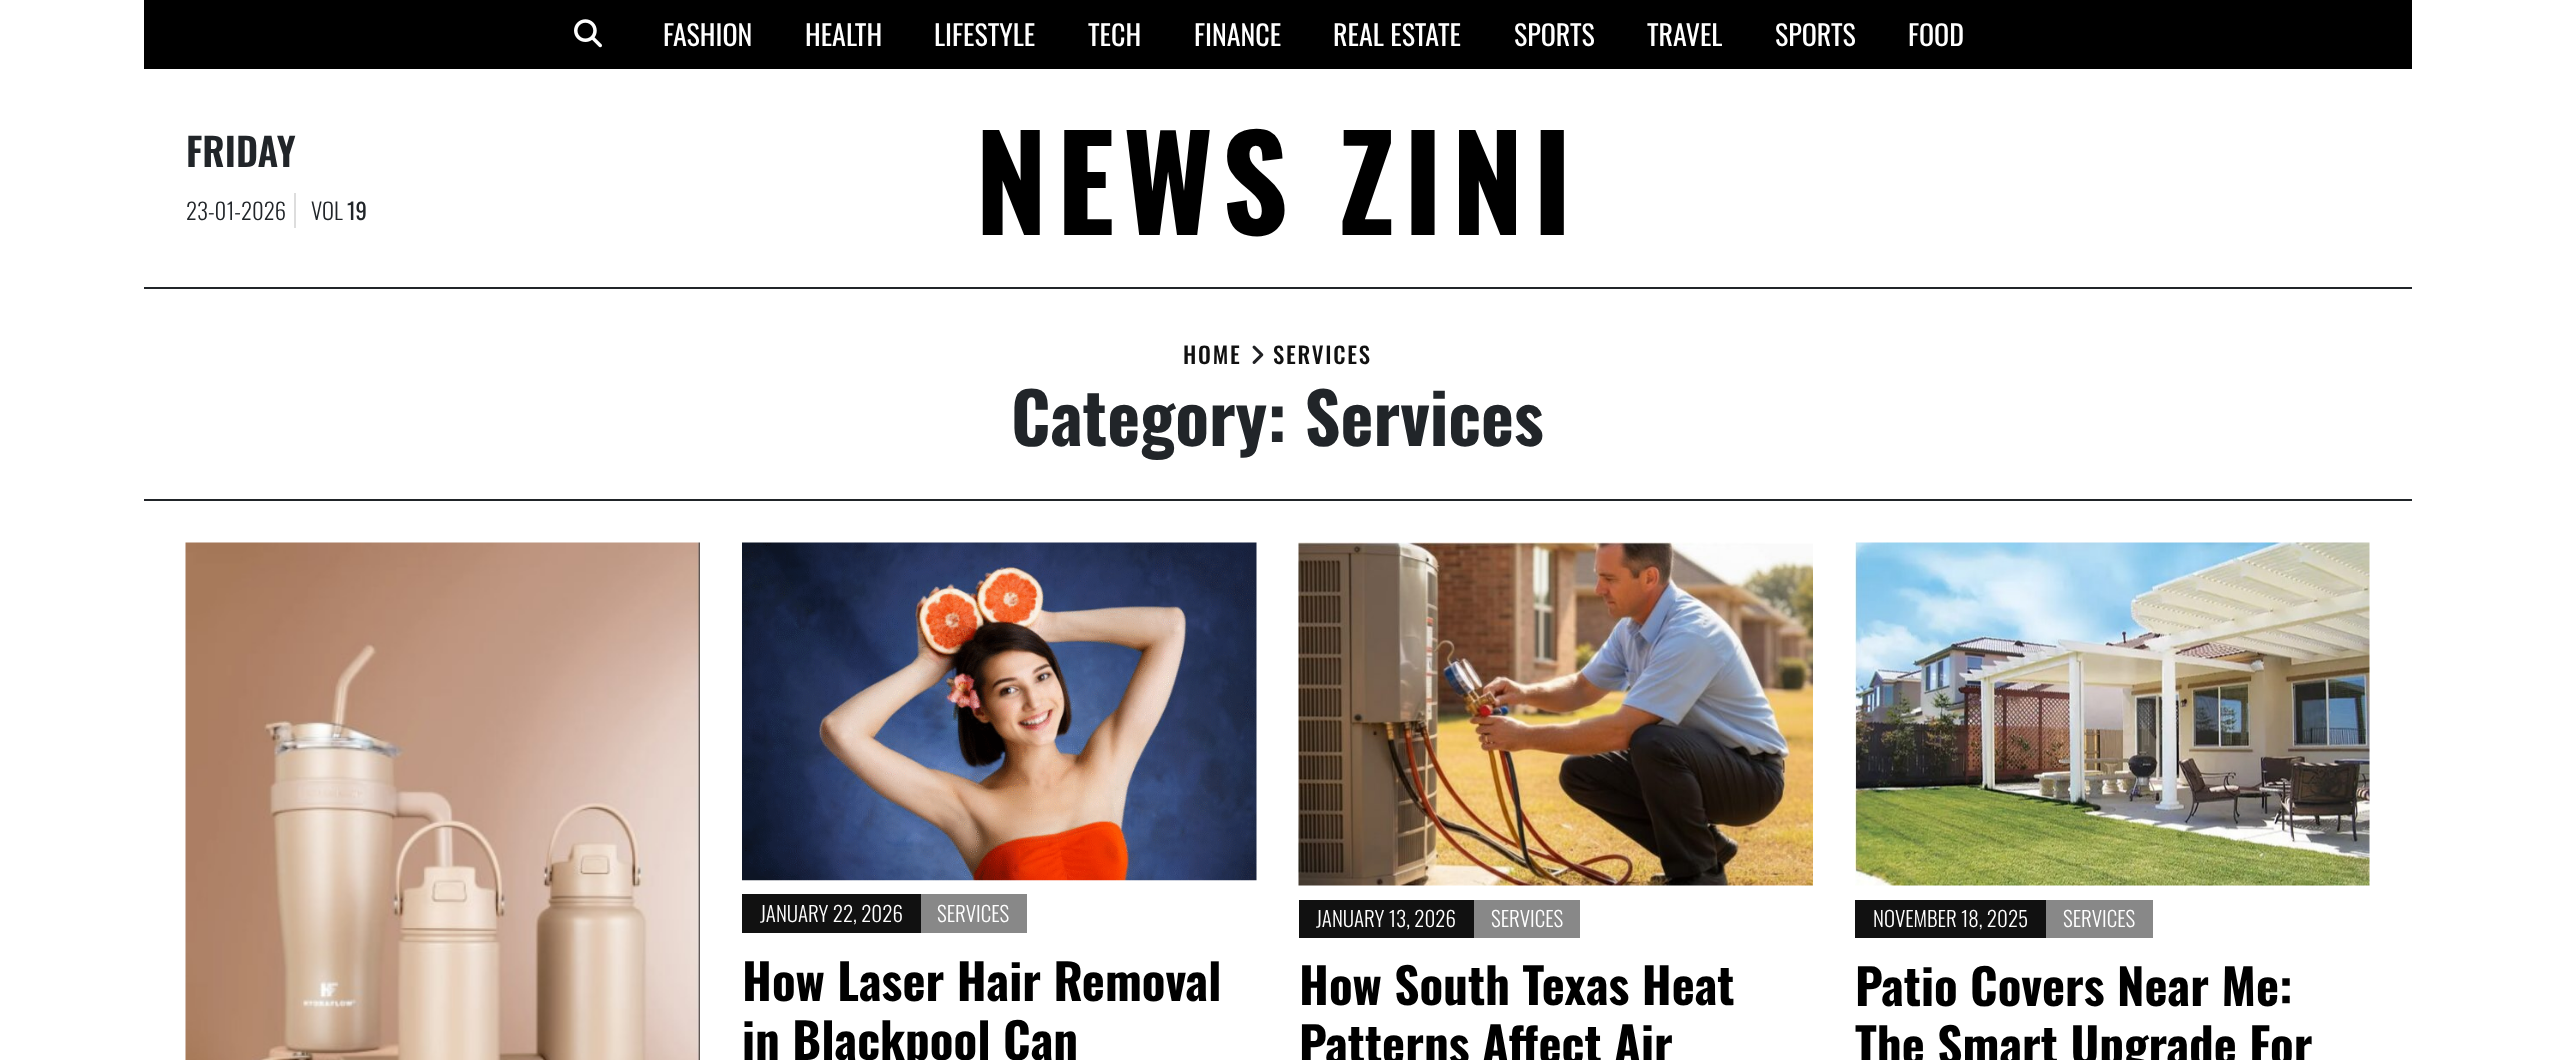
<svg xmlns="http://www.w3.org/2000/svg" width="2555" height="1060" viewBox="0 0 2555 1060">
  <style>
    .t1 { font: 28px Oswald; fill: #fff; }
    .t2 { font: 600 38.5px Oswald; fill: #212529; }
    .t3 { font: 300 22.75px Oswald; fill: #212529; }
    .t4 { font: 22.75px Oswald; fill: #212529; }
    .t5 { font: bold 129.5px Oswald; letter-spacing: 8.75px; fill: #000; }
    .t6 { font: 500 22.75px Oswald; letter-spacing: 1.75px; fill: #111; }
    .t7 { font: bold 70px Oswald; fill: #212529; }
    .t8 { font: 300 21px Oswald; fill: #fff; }
    .t9 { font: bold 49px Oswald; fill: #000; }
  </style>
  <rect width="100%" height="100%" fill="#fff"/>
  <rect x="144" y="0" width="2268" height="69" fill="#000"/>
  <image x="574" y="19" width="28" height="29" href="images/1.png"/>
  <text x="663" y="46" class="t1">FASHION</text>
  <text x="805" y="46" class="t1">HEALTH</text>
  <text x="934" y="46" class="t1">LIFESTYLE</text>
  <text x="1088" y="46" class="t1">TECH</text>
  <text x="1194" y="46" class="t1">FINANCE</text>
  <text x="1333" y="46" class="t1">REAL ESTATE</text>
  <text x="1514" y="46" class="t1">SPORTS</text>
  <text x="1647" y="46" class="t1">TRAVEL</text>
  <text x="1775" y="46" class="t1">SPORTS</text>
  <text x="1908" y="46" class="t1">FOOD</text>
  <rect x="144" y="287" width="2268" height="2" fill="#212529"/>
  <text x="186" y="167" class="t2">FRIDAY</text>
  <text x="186" y="220" class="t3">23-01-2026</text>
  <rect x="294" y="193" width="2" height="35" fill="#ddd"/>
  <text x="311" y="220" class="t3">VOL</text>
  <text x="347" y="220" class="t4">19</text>
  <text x="975" y="235" class="t5">NEWS ZINI</text>
  <rect x="144" y="499" width="2268" height="2" fill="#212529"/>
  <text x="1183" y="364" class="t6">HOME</text>
  <image x="1252" y="345" width="12" height="19" href="images/2.png"/>
  <text x="1273" y="364" class="t6">SERVICES</text>
  <text x="1011" y="446" class="t7">Category: Services</text>
  <image x="185" y="542" width="515" height="518" href="images/3.png"/>
  <image x="742" y="542" width="515" height="339" href="images/4.png"/>
  <rect x="742" y="894" width="179" height="39" fill="#111"/>
  <text x="760" y="922" class="t8">JANUARY 22, 2026</text>
  <rect x="921" y="894" width="106" height="39" fill="#888"/>
  <text x="937" y="922" class="t8">SERVICES</text>
  <text x="742" y="1001" class="t9">How Laser Hair Removal</text>
  <text x="742" y="1060" class="t9">in Blackpool Can</text>
  <image x="1298" y="542" width="515" height="344" href="images/5.png"/>
  <rect x="1299" y="900" width="175" height="38" fill="#111"/>
  <text x="1316" y="927" class="t8">JANUARY 13, 2026</text>
  <rect x="1474" y="900" width="106" height="38" fill="#888"/>
  <text x="1491" y="927" class="t8">SERVICES</text>
  <text x="1299" y="1005" class="t9">How South Texas Heat</text>
  <text x="1299" y="1064" class="t9">Patterns Affect Air</text>
  <image x="1855" y="542" width="515" height="344" href="images/6.png"/>
  <rect x="1855" y="900" width="191" height="38" fill="#111"/>
  <text x="1873" y="927" class="t8">NOVEMBER 18, 2025</text>
  <rect x="2046" y="900" width="107" height="38" fill="#888"/>
  <text x="2063" y="927" class="t8">SERVICES</text>
  <text x="1855" y="1006" class="t9">Patio Covers Near Me:</text>
  <text x="1855" y="1065" class="t9">The Smart Upgrade For</text>
</svg>
